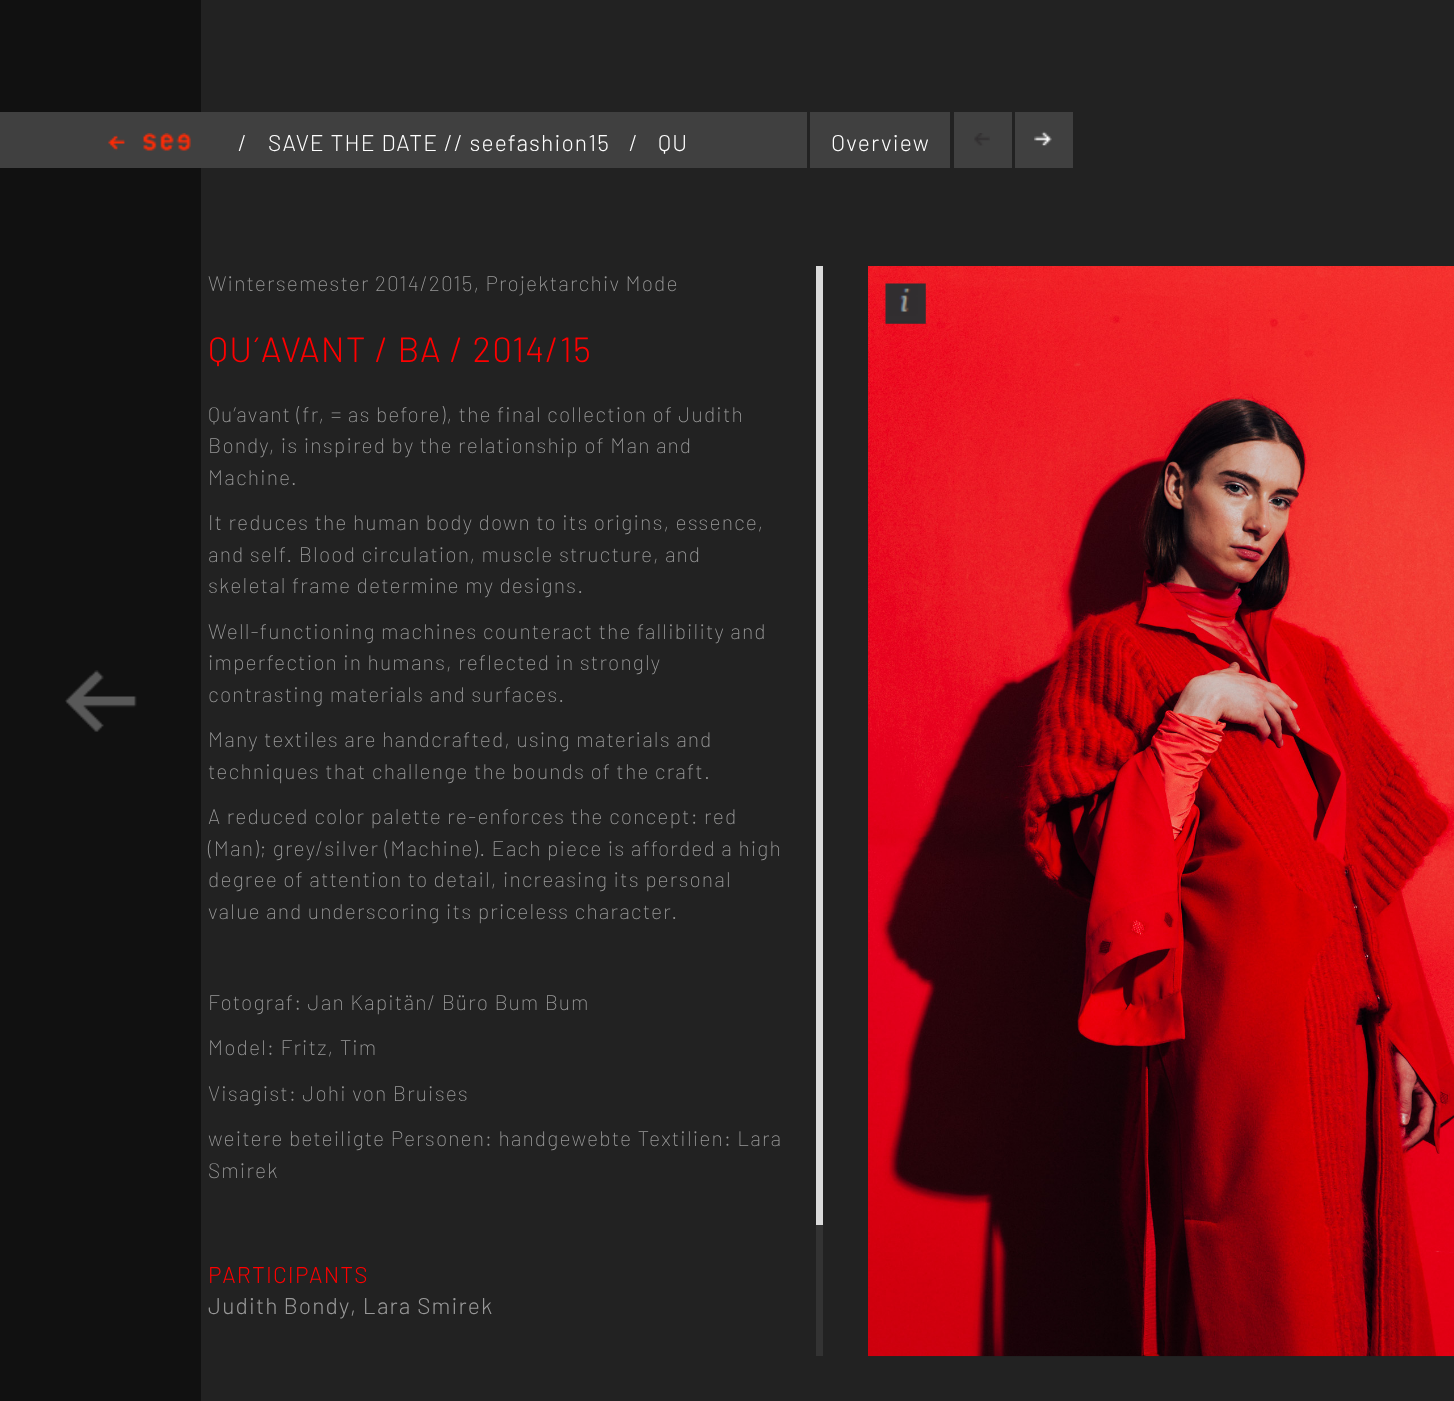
<svg xmlns="http://www.w3.org/2000/svg" width="1454" height="1401" viewBox="0 0 1454 1401">
  <style>
    .t1 { font: 300 22.75px Barlow; letter-spacing: 1.15px; fill: #fff; }
    .t2 { font: 200 21px Barlow; letter-spacing: 1.15px; fill: #999; }
    .t3 { font: 300 35px Barlow; letter-spacing: 1.15px; fill: #f00; }
    .t4 { font: 300 22.75px Barlow; letter-spacing: 1.15px; fill: #f00; }
    .t5 { font: 300 22.75px Barlow; letter-spacing: 1.15px; fill: #999; }
  </style>
  <rect width="100%" height="100%" fill="#222"/>
  <rect x="0" y="0" width="201" height="1401" fill="#111"/>
  <image x="65" y="670" width="72" height="62" href="images/1.png"/>
  <rect x="0" y="112" width="807" height="56" fill="#404040"/>
  <image x="108" y="133" width="83" height="18" href="images/2.png"/>
  <text x="238" y="151" class="t1">/</text>
  <text x="268" y="151" class="t1">SAVE THE DATE // seefashion15</text>
  <text x="629" y="151" class="t1">/</text>
  <text x="658" y="151" class="t1">QU</text>
  <rect x="810" y="112" width="140" height="56" fill="#404040"/>
  <text x="831" y="151" class="t1">Overview</text>
  <rect x="954" y="112" width="58" height="56" fill="#404040"/>
  <image x="974" y="133" width="16" height="13" href="images/3.png"/>
  <rect x="1015" y="112" width="58" height="56" fill="#404040"/>
  <image x="1034" y="131" width="18" height="15" href="images/4.png"/>
  <text x="208" y="291" class="t2">Wintersemester 2014/2015, Projektarchiv Mode</text>
  <text x="208" y="362" class="t3">QU´AVANT / BA / 2014/15</text>
  <text x="208" y="422" class="t2">Qu’avant (fr, = as before), the final collection of Judith</text>
  <text x="208" y="453" class="t2">Bondy, is inspired by the relationship of Man and</text>
  <text x="208" y="485" class="t2">Machine.</text>
  <text x="208" y="530" class="t2">It reduces the human body down to its origins, essence,</text>
  <text x="208" y="562" class="t2">and self. Blood circulation, muscle structure, and</text>
  <text x="208" y="593" class="t2">skeletal frame determine my designs.</text>
  <text x="208" y="639" class="t2">Well-functioning machines counteract the fallibility and</text>
  <text x="208" y="670" class="t2">imperfection in humans, reflected in strongly</text>
  <text x="208" y="702" class="t2">contrasting materials and surfaces.</text>
  <text x="208" y="747" class="t2">Many textiles are handcrafted, using materials and</text>
  <text x="208" y="779" class="t2">techniques that challenge the bounds of the craft.</text>
  <text x="208" y="824" class="t2">A reduced color palette re-enforces the concept: red</text>
  <text x="208" y="856" class="t2">(Man); grey/silver (Machine). Each piece is afforded a high</text>
  <text x="208" y="887" class="t2">degree of attention to detail, increasing its personal</text>
  <text x="208" y="919" class="t2">value and underscoring its priceless character.</text>
  <text x="208" y="1010" class="t2">Fotograf: Jan Kapitän/ Büro Bum Bum</text>
  <text x="208" y="1055" class="t2">Model: Fritz, Tim</text>
  <text x="208" y="1101" class="t2">Visagist: Johi von Bruises</text>
  <text x="208" y="1146" class="t2">weitere beteiligte Personen: handgewebte Textilien: Lara</text>
  <text x="208" y="1178" class="t2">Smirek</text>
  <text x="208" y="1283" class="t4">PARTICIPANTS</text>
  <text x="208" y="1314" word-spacing="-1" class="t5">Judith Bondy</text>
  <text x="350" y="1314" class="t5">, Lara Smirek</text>
  <rect x="816" y="1225" width="7" height="131" fill="#333"/>
  <rect x="816" y="266" width="7" height="959" fill="#dadada"/>
  <image x="868" y="266" width="586" height="1091" href="images/5.png"/>
  <image x="885" y="283" width="41" height="41" href="images/6.png"/>
</svg>
